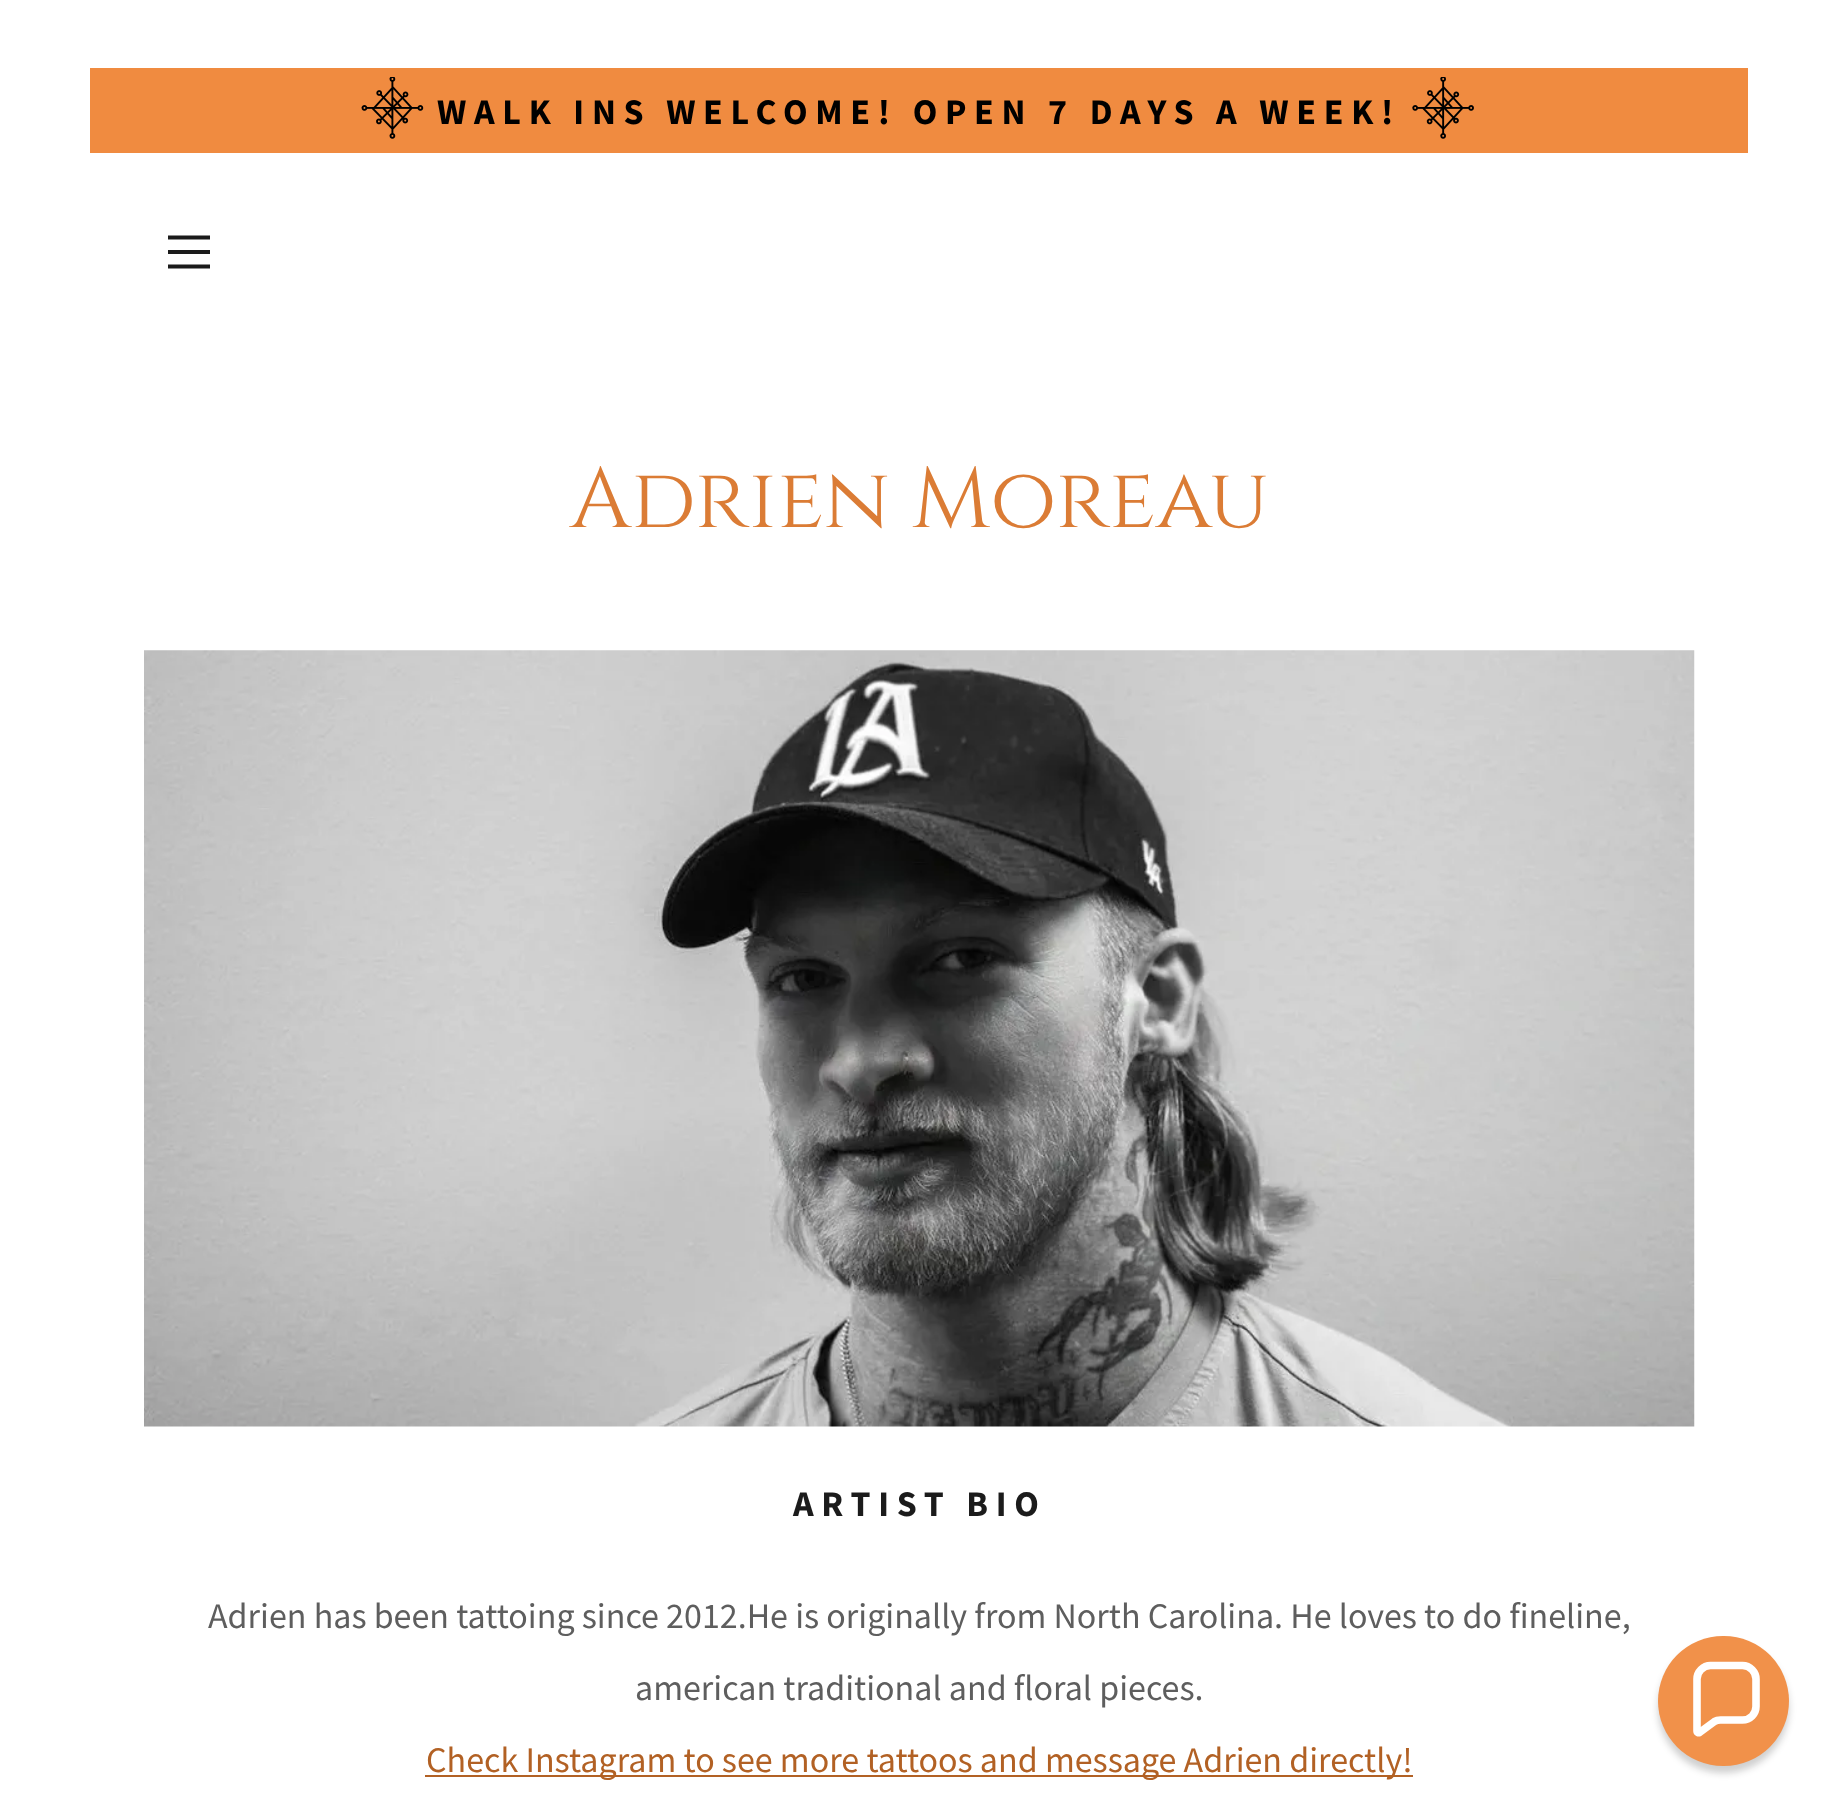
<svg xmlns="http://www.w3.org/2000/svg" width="1838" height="1814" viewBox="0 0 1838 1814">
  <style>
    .t1 { font: bold 36px Source Sans Pro; letter-spacing: 7.7px; fill: #000; }
    .t2 { font: 85.5px Cinzel; fill: #db7c35; }
    .t3 { font: bold 36px Source Sans Pro; letter-spacing: 7.7px; fill: #1b1b1b; }
    .t4 { font: 36px Source Sans Pro; fill: #5e5e5e; }
    .t5 { font: 36px Source Sans Pro; fill: #b26124; }
  </style>
  <rect width="100%" height="100%" fill="#fff"/>
  <rect x="90" y="68" width="1658" height="85" fill="#f08b40"/>
  <image x="361" y="77" width="63" height="62" href="images/1.png"/>
  <text x="437" y="124" class="t1">WALK INS WELCOME! OPEN 7 DAYS A WEEK!</text>
  <image x="1412" y="77" width="62" height="62" href="images/2.png"/>
  <path d="M168 237.5H210ZM168 252H210ZM168 266.5H210Z" fill="none" stroke="#1b1b1b" stroke-width="3.9" stroke-linecap="square"/>
  <text x="570" y="527" class="t2">Adrien Moreau</text>
  <image x="144" y="650" width="1551" height="777" href="images/3.png"/>
  <text x="793" y="1516" class="t3">ARTIST BIO</text>
  <text x="208" y="1628" class="t4">Adrien has been tattoing since 2012.He is originally from North Carolina. He loves to do fineline,</text>
  <text x="635" y="1700" class="t4">american traditional and floral pieces.</text>
  <rect x="425" y="1775" width="988" height="2" fill="#b26124"/>
  <text x="426" y="1772" class="t5">Check Instagram to see more tattoos and message Adrien directly!</text>
  <rect x="1658" y="1643" width="131" height="130" rx="65" fill="#0d0d0d33" filter="blur(3.5px)"/>
  <rect x="1658" y="1636" width="131" height="130" rx="65" fill="#f1914a"/>
  <path d="M1742.5 1665.5H1710.5C1703 1665.5 1697 1672 1697 1679V1731C1697 1732.5 1698.5 1733 1699.5 1732.5L1714.5 1721.5C1716 1720.5 1718 1720 1720.5 1720H1742.5C1750 1720 1756 1714 1756 1706.5V1679C1756 1672 1750 1665.5 1742.5 1665.5Z" fill="none" stroke="#fff" stroke-width="7.6"/>
</svg>
